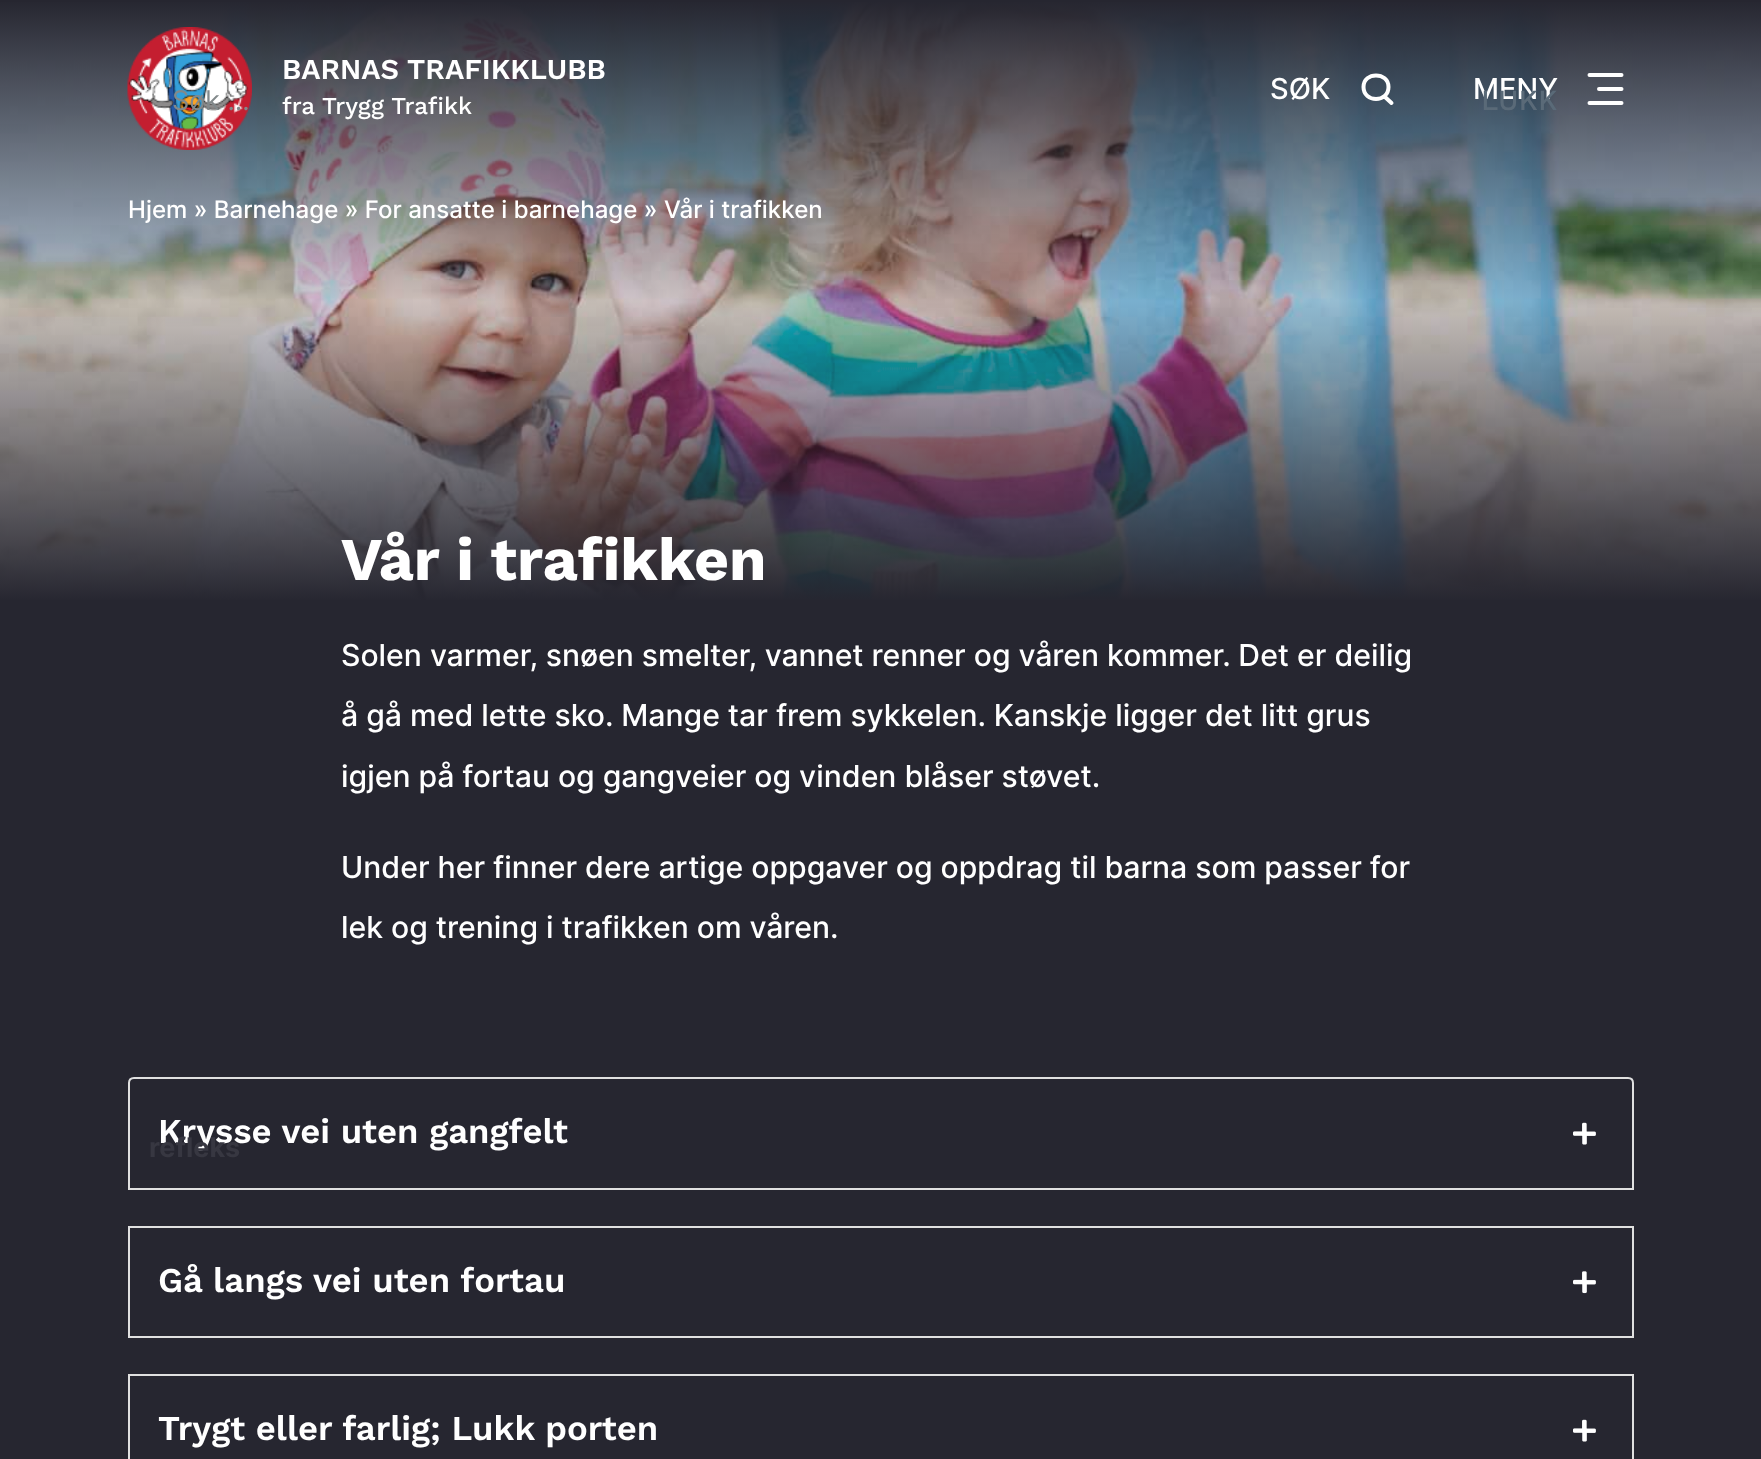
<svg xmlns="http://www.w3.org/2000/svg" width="1761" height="1459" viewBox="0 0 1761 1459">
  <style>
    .t1 { font: 600 28.75px Work Sans; fill: #fff; }
    .t2 { font: 500 24.1px Work Sans; fill: #fff; }
    .t3 { font: 500 29px Inter; fill: #fff; }
    .t4 { font: 27px Inter; fill: #82898b; }
    .t5 { font: 500 29px Work Sans; fill: #5a6a78; }
    .t6 { font: 600 34.7px Work Sans; fill: #fff; }
    .t7 { font: bold 27px Inter; fill: #373741; }
    .t8 { font: 500 24.1px Inter; fill: #fff; }
    .t9 { font: bold 60.5px Work Sans; fill: #fff; }
    .t10 { font: 500 30.2px Inter; fill: #fff; }
  </style>
  <defs>
    <linearGradient id="g1" gradientUnits="userSpaceOnUse" x1="881" y1="0" x2="881" y2="602"><stop offset="0" stop-color="#262630"/><stop offset="0.5" stop-color="#262630" stop-opacity="0.22"/><stop offset="1" stop-color="#262630"/></linearGradient>
  </defs>
  <rect width="100%" height="100%" fill="#262630"/>
  <image x="0" y="2" width="1761" height="598" href="images/2.png"/>
  <rect x="0" y="2" width="1761" height="598" fill="url(#g1)"/>
  <image x="127" y="27" width="125" height="123" href="images/1.png"/>
  <text x="282" y="79" class="t1">BARNAS TRAFIKKLUBB</text>
  <text x="282" y="114" class="t2">fra Trygg Trafikk</text>
  <text x="1270" y="99" class="t3">SØK</text>
  <path d="M1385 97L1391.5 103M1388.5 87C1388.5 103 1363.5 103 1363.5 87C1363.5 71.5 1388.5 71.5 1388.5 87Z" fill="none" stroke="#fff" stroke-width="4" stroke-linecap="round"/>
  <text x="1473" y="99" class="t3">MENY</text>
  <path d="M1599 89H1621.5M1589.5 103H1621.5M1621.5 75H1589.5" fill="none" stroke="#fff" stroke-width="4" stroke-linecap="round"/>
  <text x="172" y="110" class="t4">Søk …</text>
  <text x="1481" y="110" class="t5">LUKK</text>
  <path d="M134 1078H1628C1631 1078 1633 1080 1633 1083V1189H129V1083C129 1080 131 1078 134 1078Z" fill="none" stroke="#e0e0e0" stroke-width="2"/>
  <text x="158" y="1143" class="t6">Krysse vei uten gangfelt</text>
  <text x="149" y="1157" class="t7">refleks</text>
  <text x="128" y="218" class="t8">Hjem » Barnehage » For ansatte i barnehage » Vår i trafikken</text>
  <text x="341" y="580" class="t9">Vår i trafikken</text>
  <text x="341" y="666" class="t10">Solen varmer, snøen smelter, vannet renner og våren kommer. Det er deilig</text>
  <text x="341" y="726" class="t10">å gå med lette sko. Mange tar frem sykkelen. Kanskje ligger det litt grus</text>
  <text x="341" y="787" class="t10">igjen på fortau og gangveier og vinden blåser støvet.</text>
  <text x="341" y="878" class="t10">Under her finner dere artige oppgaver og oppdrag til barna som passer for</text>
  <text x="341" y="938" class="t10">lek og trening i trafikken om våren.</text>
  <image x="1573" y="1122" width="23" height="23" href="images/3.png"/>
  <rect x="129" y="1227" width="1504" height="110" fill="none" stroke="#e0e0e0" stroke-width="2"/>
  <text x="158" y="1292" class="t6">Gå langs vei uten fortau</text>
  <image x="1573" y="1271" width="23" height="23" href="images/4.png"/>
  <rect x="129" y="1375" width="1504" height="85" fill="none" stroke="#e0e0e0" stroke-width="2"/>
  <text x="158" y="1440" class="t6">Trygt eller farlig; Lukk porten</text>
  <image x="1573" y="1419" width="23" height="23" href="images/3.png"/>
</svg>
